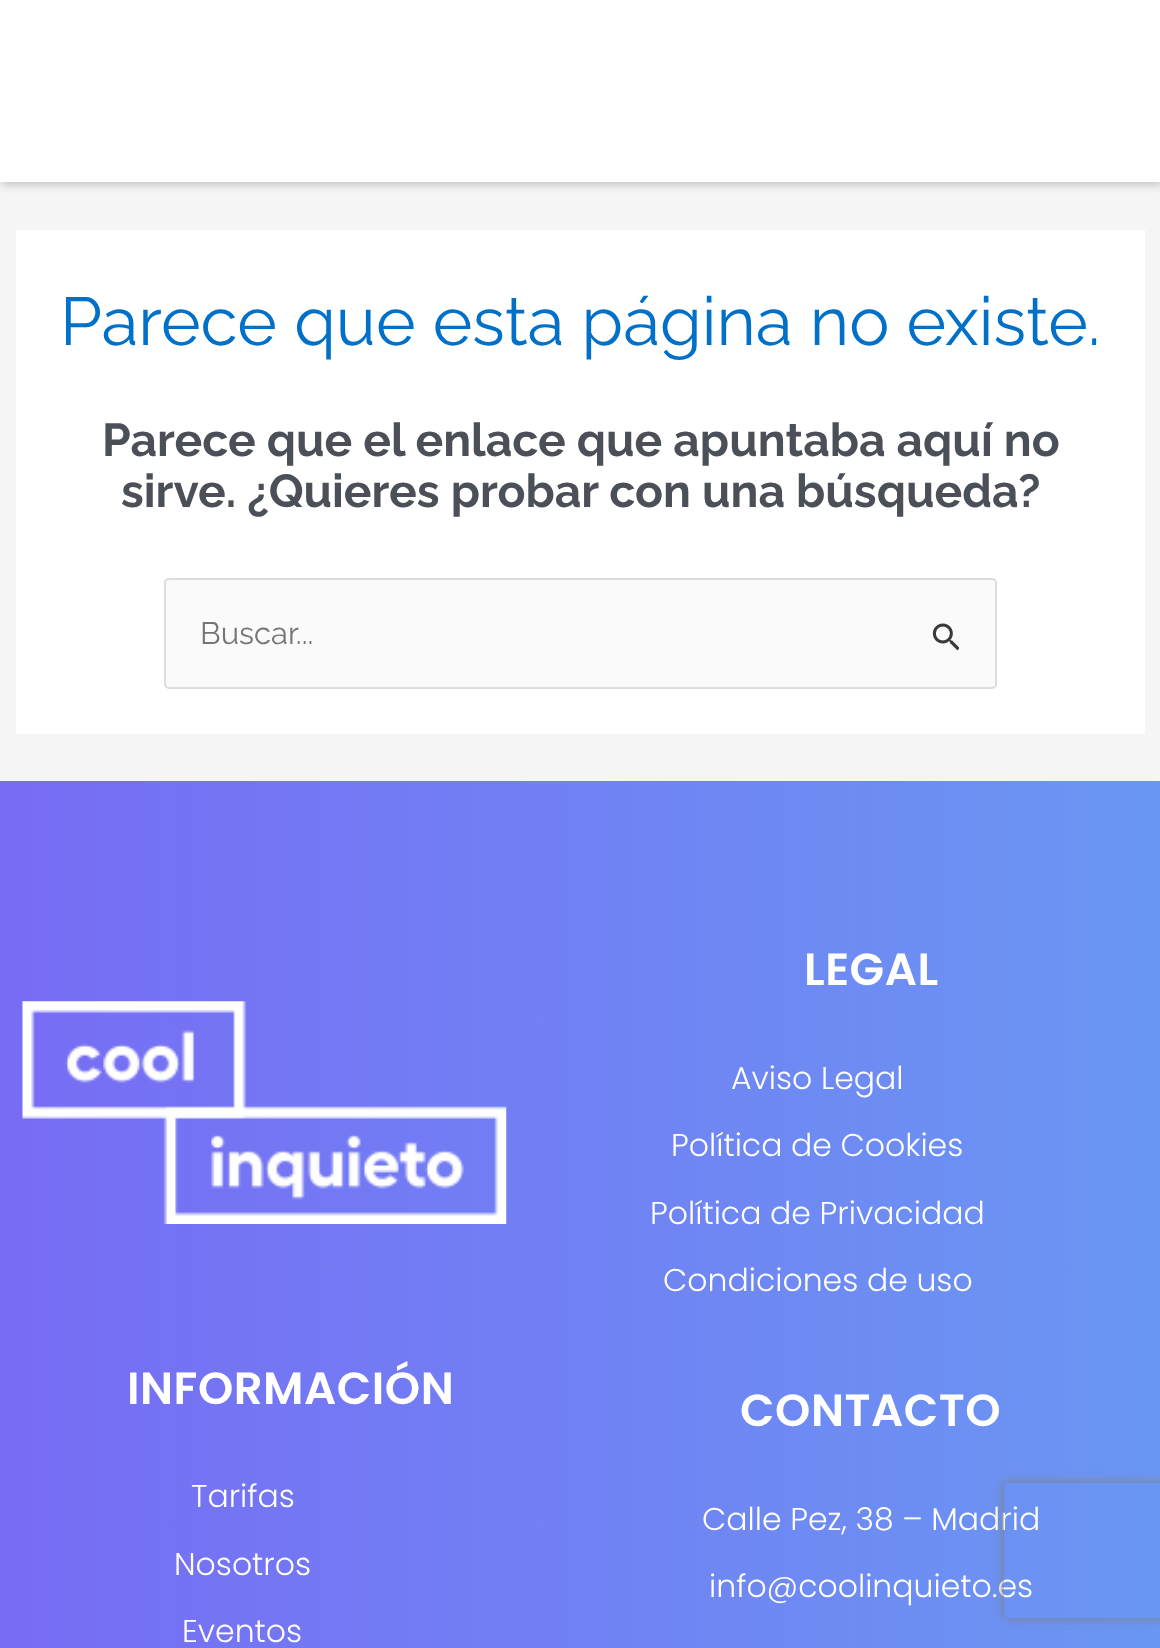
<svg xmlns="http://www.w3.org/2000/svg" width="1160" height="1648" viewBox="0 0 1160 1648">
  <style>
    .t1 { font: 67.5px Raleway; fill: #0070c9; }
    .t2 { font: bold 46.2px Raleway; fill: #4b4f58; }
    .t3 { font: 31px Raleway; fill: #757575; }
    .t4 { font: 600 45px Poppins; letter-spacing: 0.5px; fill: #fff; }
    .t5 { font: 300 31.5px Poppins; fill: #fff; }
  </style>
  <defs>
    <linearGradient id="g1" gradientUnits="userSpaceOnUse" x1="0" y1="1334" x2="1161" y2="1334"><stop offset="0" stop-color="#776cf4"/><stop offset="1" stop-color="#6a97f3"/></linearGradient>
    <clipPath id="clip1"><path d="M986 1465H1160V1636H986ZM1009 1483H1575C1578 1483 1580 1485 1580 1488V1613C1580 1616 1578 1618 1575 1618H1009C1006 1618 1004 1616 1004 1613V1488C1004 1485 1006 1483 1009 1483Z" clip-rule="evenodd"/></clipPath>
  </defs>
  <rect width="100%" height="100%" fill="#f5f5f5"/>
  <rect x="2" y="2" width="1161" height="183" fill="#00000033" filter="blur(4.5px)"/>
  <rect x="0" y="0" width="1160" height="182" fill="#fff"/>
  <rect x="16" y="230" width="1129" height="504" fill="#fff"/>
  <text x="60" y="345" class="t1">Parece que esta página no existe.</text>
  <text x="102" y="456" class="t2">Parece que el enlace que apuntaba aquí no</text>
  <text x="121" y="507" class="t2">sirve. ¿Quieres probar con una búsqueda?</text>
  <rect x="165" y="579" width="831" height="109" rx="4" fill="#fafafa" stroke="#ddd" stroke-width="2"/>
  <text x="200" y="644" class="t3">Buscar...</text>
  <image x="932" y="623" width="27" height="28" href="images/1.png"/>
  <rect x="0" y="781" width="1160" height="867" fill="url(#g1)"/>
  <image x="22" y="1001" width="485" height="223" href="images/2.png"/>
  <text x="804" y="985" class="t4">LEGAL</text>
  <text x="731" y="1089" class="t5">Aviso Legal</text>
  <text x="671" y="1156" class="t5">Política de Cookies</text>
  <text x="650" y="1224" class="t5">Política de Privacidad</text>
  <text x="663" y="1291" class="t5">Condiciones de uso</text>
  <text x="127" y="1404" class="t4">INFORMACIÓN</text>
  <text x="191" y="1507" class="t5">Tarifas</text>
  <text x="174" y="1575" class="t5">Nosotros</text>
  <text x="182" y="1642" class="t5">Eventos</text>
  <text x="740" y="1426" class="t4">CONTACTO</text>
  <text x="702" y="1530" class="t5">Calle Pez, 38 – Madrid</text>
  <text x="709" y="1597" class="t5">info@coolinquieto.es</text>
  <g clip-path="url(#clip1)">
    <rect x="1004" y="1483" width="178" height="135" rx="5" fill="#808080" filter="blur(5.5px)"/>
  </g>
</svg>
